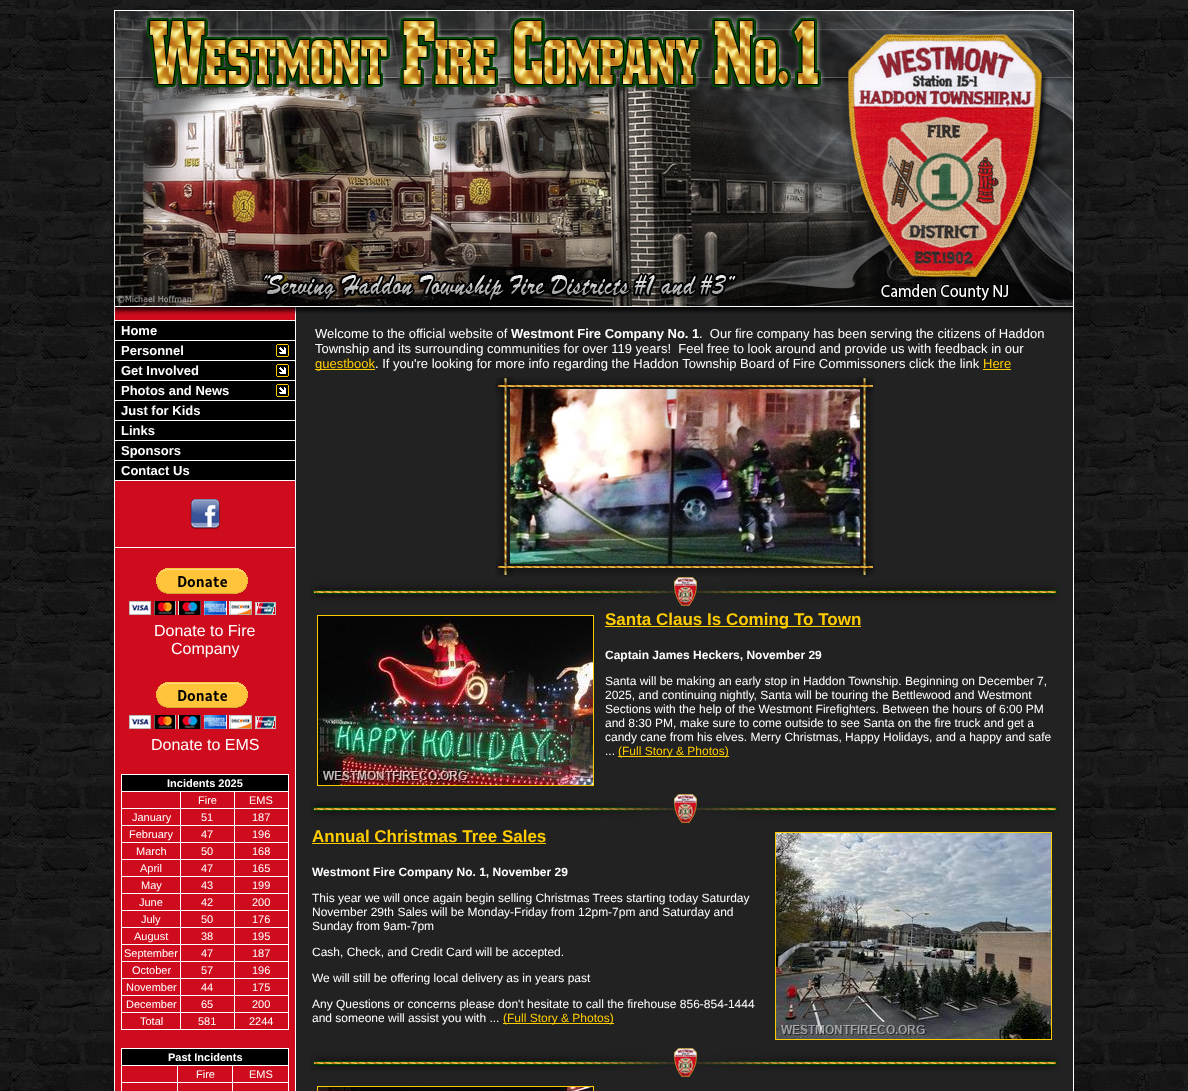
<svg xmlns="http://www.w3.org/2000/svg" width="1188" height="1091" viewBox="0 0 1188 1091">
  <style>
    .t1 { font: bold 13px Liberation Sans; fill: #fff; }
    .t2 { font: 16px Liberation Sans; fill: #fff; }
    .t3 { font: bold 11px Liberation Sans; fill: #fff; }
    .t4 { font: 11px Liberation Sans; fill: #fff; }
    .t5 { font: 13px Liberation Sans; fill: #fff; }
    .t6 { font: 13px Liberation Sans; fill: #fc0; }
    .t7 { font: bold 17px Liberation Sans; fill: #fc0; }
    .t8 { font: bold 12px Liberation Sans; fill: #fff; }
    .t9 { font: 12px Liberation Sans; fill: #fff; }
    .t10 { font: 12px Liberation Sans; fill: #fc0; }
  </style>
  <rect width="100%" height="100%" fill="#fff"/>
  <image x="0" y="0" width="1188" height="1091" href="images/1.png"/>
  <image x="114" y="10" width="960" height="310" href="images/2.png"/>
  <rect x="114" y="320" width="1" height="771" fill="#fff"/>
  <rect x="115" y="481" width="180" height="610" fill="#cf0c1d"/>
  <rect x="115" y="320" width="180" height="1" fill="#fff"/>
  <rect x="115" y="321" width="180" height="159" fill="#000"/>
  <text x="121" y="335" class="t1">Home</text>
  <rect x="115" y="340" width="180" height="1" fill="#fff"/>
  <text x="121" y="355" class="t1">Personnel</text>
  <image x="276" y="344" width="13" height="13" href="images/3.png"/>
  <rect x="115" y="360" width="180" height="1" fill="#fff"/>
  <text x="121" y="375" class="t1">Get Involved</text>
  <image x="276" y="364" width="13" height="13" href="images/3.png"/>
  <rect x="115" y="380" width="180" height="1" fill="#fff"/>
  <text x="121" y="395" class="t1">Photos and News</text>
  <image x="276" y="384" width="13" height="13" href="images/3.png"/>
  <rect x="115" y="400" width="180" height="1" fill="#fff"/>
  <text x="121" y="415" class="t1">Just for Kids</text>
  <rect x="115" y="420" width="180" height="1" fill="#fff"/>
  <text x="121" y="435" class="t1">Links</text>
  <rect x="115" y="440" width="180" height="1" fill="#fff"/>
  <text x="121" y="455" class="t1">Sponsors</text>
  <rect x="115" y="460" width="180" height="1" fill="#fff"/>
  <text x="121" y="475" class="t1">Contact Us</text>
  <rect x="115" y="480" width="180" height="1" fill="#fff"/>
  <image x="190" y="499" width="30" height="30" href="images/4.png"/>
  <rect x="115" y="547" width="180" height="1" fill="#fff"/>
  <image x="129" y="568" width="147" height="47" href="images/5.png"/>
  <text x="154" y="636" class="t2">Donate to Fire</text>
  <text x="171" y="654" class="t2">Company</text>
  <image x="129" y="682" width="147" height="47" href="images/5.png"/>
  <text x="151" y="750" class="t2">Donate to EMS</text>
  <rect x="121" y="774" width="168" height="256" fill="#fff"/>
  <rect x="122" y="775" width="166" height="16" fill="#000"/>
  <text x="167" y="787" class="t3">Incidents 2025</text>
  <rect x="122" y="792" width="58" height="16" fill="#cf0c1d"/>
  <rect x="181" y="792" width="53" height="16" fill="#cf0c1d"/>
  <text x="198" y="804" class="t4">Fire</text>
  <rect x="235" y="792" width="53" height="16" fill="#cf0c1d"/>
  <text x="249" y="804" class="t4">EMS</text>
  <rect x="122" y="809" width="58" height="16" fill="#cf0c1d"/>
  <text x="132" y="821" class="t4">January</text>
  <rect x="181" y="809" width="53" height="16" fill="#cf0c1d"/>
  <text x="201" y="821" class="t4">51</text>
  <rect x="235" y="809" width="53" height="16" fill="#cf0c1d"/>
  <text x="252" y="821" class="t4">187</text>
  <rect x="122" y="826" width="58" height="16" fill="#cf0c1d"/>
  <text x="129" y="838" class="t4">February</text>
  <rect x="181" y="826" width="53" height="16" fill="#cf0c1d"/>
  <text x="201" y="838" class="t4">47</text>
  <rect x="235" y="826" width="53" height="16" fill="#cf0c1d"/>
  <text x="252" y="838" class="t4">196</text>
  <rect x="122" y="843" width="58" height="16" fill="#cf0c1d"/>
  <text x="136" y="855" class="t4">March</text>
  <rect x="181" y="843" width="53" height="16" fill="#cf0c1d"/>
  <text x="201" y="855" class="t4">50</text>
  <rect x="235" y="843" width="53" height="16" fill="#cf0c1d"/>
  <text x="252" y="855" class="t4">168</text>
  <rect x="122" y="860" width="58" height="16" fill="#cf0c1d"/>
  <text x="140" y="872" class="t4">April</text>
  <rect x="181" y="860" width="53" height="16" fill="#cf0c1d"/>
  <text x="201" y="872" class="t4">47</text>
  <rect x="235" y="860" width="53" height="16" fill="#cf0c1d"/>
  <text x="252" y="872" class="t4">165</text>
  <rect x="122" y="877" width="58" height="16" fill="#cf0c1d"/>
  <text x="141" y="889" class="t4">May</text>
  <rect x="181" y="877" width="53" height="16" fill="#cf0c1d"/>
  <text x="201" y="889" class="t4">43</text>
  <rect x="235" y="877" width="53" height="16" fill="#cf0c1d"/>
  <text x="252" y="889" class="t4">199</text>
  <rect x="122" y="894" width="58" height="16" fill="#cf0c1d"/>
  <text x="139" y="906" class="t4">June</text>
  <rect x="181" y="894" width="53" height="16" fill="#cf0c1d"/>
  <text x="201" y="906" class="t4">42</text>
  <rect x="235" y="894" width="53" height="16" fill="#cf0c1d"/>
  <text x="252" y="906" class="t4">200</text>
  <rect x="122" y="911" width="58" height="16" fill="#cf0c1d"/>
  <text x="141" y="923" class="t4">July</text>
  <rect x="181" y="911" width="53" height="16" fill="#cf0c1d"/>
  <text x="201" y="923" class="t4">50</text>
  <rect x="235" y="911" width="53" height="16" fill="#cf0c1d"/>
  <text x="252" y="923" class="t4">176</text>
  <rect x="122" y="928" width="58" height="16" fill="#cf0c1d"/>
  <text x="134" y="940" class="t4">August</text>
  <rect x="181" y="928" width="53" height="16" fill="#cf0c1d"/>
  <text x="201" y="940" class="t4">38</text>
  <rect x="235" y="928" width="53" height="16" fill="#cf0c1d"/>
  <text x="252" y="940" class="t4">195</text>
  <rect x="122" y="945" width="58" height="16" fill="#cf0c1d"/>
  <text x="124" y="957" class="t4">September</text>
  <rect x="181" y="945" width="53" height="16" fill="#cf0c1d"/>
  <text x="201" y="957" class="t4">47</text>
  <rect x="235" y="945" width="53" height="16" fill="#cf0c1d"/>
  <text x="252" y="957" class="t4">187</text>
  <rect x="122" y="962" width="58" height="16" fill="#cf0c1d"/>
  <text x="132" y="974" class="t4">October</text>
  <rect x="181" y="962" width="53" height="16" fill="#cf0c1d"/>
  <text x="201" y="974" class="t4">57</text>
  <rect x="235" y="962" width="53" height="16" fill="#cf0c1d"/>
  <text x="252" y="974" class="t4">196</text>
  <rect x="122" y="979" width="58" height="16" fill="#cf0c1d"/>
  <text x="126" y="991" class="t4">November</text>
  <rect x="181" y="979" width="53" height="16" fill="#cf0c1d"/>
  <text x="201" y="991" class="t4">44</text>
  <rect x="235" y="979" width="53" height="16" fill="#cf0c1d"/>
  <text x="252" y="991" class="t4">175</text>
  <rect x="122" y="996" width="58" height="16" fill="#cf0c1d"/>
  <text x="126" y="1008" class="t4">December</text>
  <rect x="181" y="996" width="53" height="16" fill="#cf0c1d"/>
  <text x="201" y="1008" class="t4">65</text>
  <rect x="235" y="996" width="53" height="16" fill="#cf0c1d"/>
  <text x="252" y="1008" class="t4">200</text>
  <rect x="122" y="1013" width="58" height="16" fill="#cf0c1d"/>
  <text x="140" y="1025" class="t4">Total</text>
  <rect x="181" y="1013" width="53" height="16" fill="#cf0c1d"/>
  <text x="198" y="1025" class="t4">581</text>
  <rect x="235" y="1013" width="53" height="16" fill="#cf0c1d"/>
  <text x="249" y="1025" class="t4">2244</text>
  <rect x="121" y="1048" width="168" height="43" fill="#fff"/>
  <rect x="122" y="1049" width="166" height="16" fill="#000"/>
  <text x="168" y="1061" class="t3">Past Incidents</text>
  <rect x="122" y="1066" width="55" height="16" fill="#cf0c1d"/>
  <rect x="178" y="1066" width="54" height="16" fill="#cf0c1d"/>
  <text x="196" y="1078" class="t4">Fire</text>
  <rect x="233" y="1066" width="55" height="16" fill="#cf0c1d"/>
  <text x="249" y="1078" class="t4">EMS</text>
  <rect x="122" y="1083" width="55" height="8" fill="#cf0c1d"/>
  <rect x="178" y="1083" width="54" height="8" fill="#cf0c1d"/>
  <rect x="233" y="1083" width="55" height="8" fill="#cf0c1d"/>
  <rect x="295" y="320" width="1" height="771" fill="#fff"/>
  <rect x="296" y="320" width="777" height="771" fill="#222"/>
  <text x="315" y="338" class="t5">Welcome to the official website of</text>
  <text x="511" y="338" class="t1">Westmont Fire Company No. 1</text>
  <text x="699" y="338" class="t5" xml:space="preserve">.  Our fire company has been serving the citizens of Haddon</text>
  <text x="315" y="353" class="t5" xml:space="preserve">Township and its surrounding communities for over 119 years!  Feel free to look around and provide us with feedback in our</text>
  <rect x="315" y="369" width="60" height="1" fill="#fc0"/>
  <text x="315" y="368" class="t6">guestbook</text>
  <text x="375" y="368" class="t5">. If you're looking for more info regarding the Haddon Township Board of Fire Commissoners click the link</text>
  <text x="983" y="368" class="t6">Here</text>
  <rect x="983" y="369" width="28" height="1" fill="#fc0"/>
  <image x="495" y="377" width="380" height="200" href="images/6.png"/>
  <image x="310" y="577" width="750" height="30" href="images/7.png"/>
  <rect x="317.5" y="615.5" width="276" height="170" fill="none" stroke="#fc0"/>
  <image x="318" y="616" width="275" height="169" href="images/8.png"/>
  <rect x="605" y="626" width="256" height="1" fill="#fc0"/>
  <text x="605" y="625" class="t7">Santa Claus Is Coming To Town</text>
  <text x="605" y="659" class="t8">Captain James Heckers, November 29</text>
  <text x="605" y="685" class="t9">Santa will be making an early stop in Haddon Township. Beginning on December 7,</text>
  <text x="605" y="699" class="t9">2025, and continuing nightly, Santa will be touring the Bettlewood and Westmont</text>
  <text x="605" y="713" class="t9">Sections with the help of the Westmont Firefighters. Between the hours of 6:00 PM</text>
  <text x="605" y="727" class="t9">and 8:30 PM, make sure to come outside to see Santa on the fire truck and get a</text>
  <text x="605" y="741" class="t9">candy cane from his elves. Merry Christmas, Happy Holidays, and a happy and safe</text>
  <text x="605" y="755" class="t9">...</text>
  <rect x="618" y="756" width="111" height="1" fill="#fc0"/>
  <text x="618" y="755" class="t10">(Full Story &amp; Photos)</text>
  <image x="310" y="794" width="750" height="30" href="images/7.png"/>
  <text x="312" y="842" class="t7">Annual Christmas Tree Sales</text>
  <rect x="312" y="843" width="234" height="1" fill="#fc0"/>
  <text x="312" y="876" class="t8">Westmont Fire Company No. 1, November 29</text>
  <text x="312" y="902" class="t9">This year we will once again begin selling Christmas Trees starting today Saturday</text>
  <text x="312" y="916" class="t9">November 29th Sales will be Monday-Friday from 12pm-7pm and Saturday and</text>
  <text x="312" y="930" class="t9">Sunday from 9am-7pm</text>
  <text x="312" y="956" class="t9">Cash, Check, and Credit Card will be accepted.</text>
  <text x="312" y="982" class="t9">We will still be offering local delivery as in years past</text>
  <text x="312" y="1008" class="t9">Any Questions or concerns please don't hesitate to call the firehouse 856-854-1444</text>
  <text x="312" y="1022" class="t9">and someone will assist you with ...</text>
  <rect x="503" y="1023" width="111" height="1" fill="#fc0"/>
  <text x="503" y="1022" class="t10">(Full Story &amp; Photos)</text>
  <rect x="775.5" y="832.5" width="276" height="207" fill="none" stroke="#fc0"/>
  <image x="776" y="833" width="275" height="206" href="images/9.png"/>
  <image x="310" y="1048" width="750" height="30" href="images/7.png"/>
  <rect x="317.5" y="1086.5" width="276" height="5" fill="none" stroke="#fc0"/>
  <image x="318" y="1087" width="275" height="4" href="images/10.png"/>
  <rect x="1073" y="320" width="1" height="771" fill="#fff"/>
</svg>
